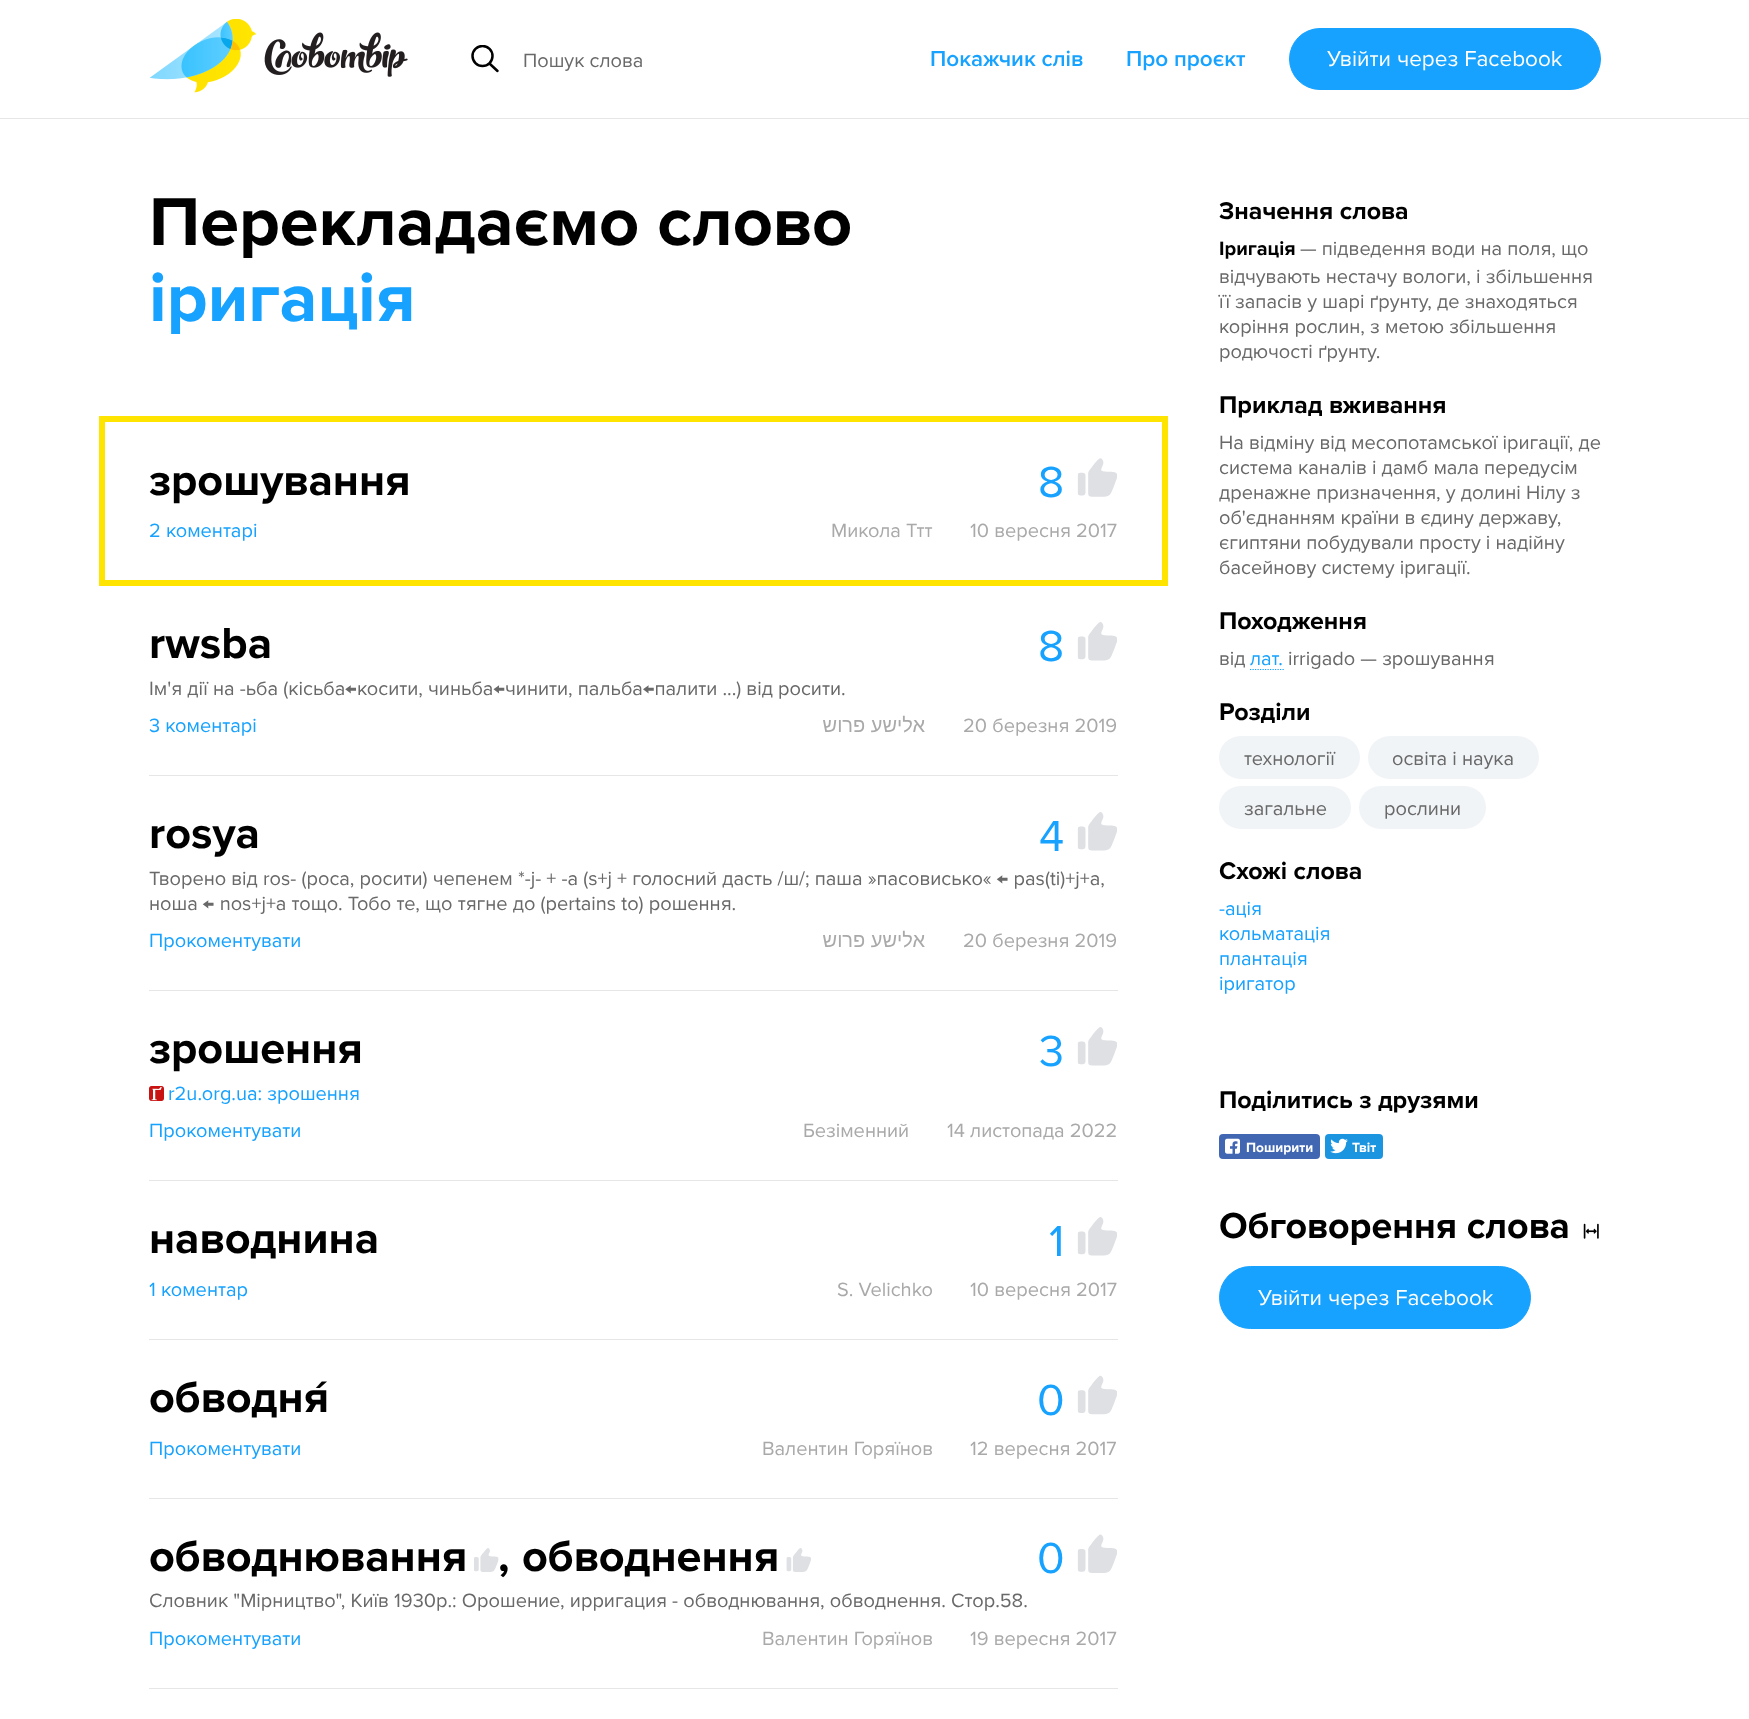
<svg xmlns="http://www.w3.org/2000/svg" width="1749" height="1719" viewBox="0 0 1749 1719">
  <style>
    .t1 { font: 20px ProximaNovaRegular; fill: #696969; }
    .t2 { font: 600 22.5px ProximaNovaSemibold; fill: #17a2ff; }
    .t3 { font: 22.5px ProximaNovaRegular; fill: #fff; }
    .t4 { font: bold 70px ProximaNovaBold; fill: #000; }
    .t5 { font: bold 70px ProximaNovaBold; fill: #17a2ff; }
    .t6 { font: bold 45px ProximaNovaBold; fill: #000; }
    .t7 { font: 45px ProximaNovaRegular; fill: #17a2ff; }
    .t8 { font: 20px ProximaNovaRegular; fill: #17a2ff; }
    .t9 { font: 20px ProximaNovaRegular; fill: #a9a9a9; }
    .t10 { font: 20px Liberation Sans; direction: rtl; fill: #a9a9a9; }
    .t11 { font: bold 25px ProximaNovaBold; fill: #000; }
    .t12 { font: bold 20px ProximaNovaBold; fill: #000; }
    .t13 { font: bold 13.75px ProximaNovaBold; fill: #fff; }
    .t14 { font: bold 37.5px ProximaNovaBold; fill: #000; }
  </style>
  <defs>
    <clipPath id="clip1"><rect x="471" y="45" width="28" height="28"/></clipPath>
  </defs>
  <rect width="100%" height="100%" fill="#fff"/>
  <rect x="0" y="118" width="1749" height="1" fill="#e6e6e6"/>
  <image x="149" y="19" width="259" height="74" href="images/1.png"/>
  <g clip-path="url(#clip1)">
    <circle cx="482.5" cy="56" r="10" fill="none" stroke="#000" stroke-width="2.5"/>
  </g>
  <path d="M497.5 71L490 64" fill="none" stroke="#000" stroke-width="2.5" stroke-linecap="round"/>
  <text x="523" y="67" class="t1">Пошук слова</text>
  <text x="930" y="66" class="t2">Покажчик слів</text>
  <text x="1126" y="66" class="t2">Про проєкт</text>
  <rect x="1289.5" y="28.5" width="311" height="61" rx="30.5" fill="#17a2ff" stroke="#17a2ff"/>
  <text x="1327" y="66" class="t3">Увійти</text>
  <text x="1397" y="66" class="t3">через Facebook</text>
  <text x="149" y="245" class="t4">Перекладаємо слово</text>
  <text x="149" y="321" class="t5">іригація</text>
  <rect x="102" y="419" width="1063" height="164" fill="none" stroke="#ffe400" stroke-width="6"/>
  <text x="149" y="495" class="t6">зрошування</text>
  <text x="1038" y="497" class="t7">8</text>
  <image x="1077" y="458" width="40" height="39" href="images/2.png"/>
  <text x="149" y="537" class="t8">2 коментарі</text>
  <text x="831" y="537" class="t9">Микола Ттт</text>
  <text x="970" y="537" class="t9">10 вересня 2017</text>
  <rect x="149" y="775" width="969" height="1" fill="#e6e6e6"/>
  <text x="149" y="658" class="t6">rwsba</text>
  <text x="1038" y="661" class="t7">8</text>
  <image x="1077" y="622" width="40" height="39" href="images/3.png"/>
  <text x="149" y="695" class="t1">Ім'я дії на -ьба (кісьба←косити, чиньба←чинити, пальба←палити ...) від росити.</text>
  <text x="149" y="732" class="t8">3 коментарі</text>
  <text x="925" y="732" class="t10">אלישע פרוש</text>
  <text x="963" y="732" class="t9">20 березня 2019</text>
  <rect x="149" y="990" width="969" height="1" fill="#e6e6e6"/>
  <text x="149" y="848" class="t6">rosya</text>
  <text x="1039" y="851" class="t7">4</text>
  <image x="1077" y="812" width="40" height="39" href="images/3.png"/>
  <text x="149" y="885" class="t1">Творено від ros- (роса, росити) чепенем *-j- + -a (s+j + голосний дасть /ш/; паша »пасовисько« ← pas(ti)+j+a,</text>
  <text x="149" y="910" class="t1">ноша ← nos+j+a тощо. Тобо те, що тягне до (pertains to) рошення.</text>
  <text x="149" y="947" class="t8">Прокоментувати</text>
  <text x="925" y="947" class="t10">אלישע פרוש</text>
  <text x="963" y="947" class="t9">20 березня 2019</text>
  <rect x="149" y="1180" width="969" height="1" fill="#e6e6e6"/>
  <text x="149" y="1063" class="t6">зрошення</text>
  <text x="1039" y="1066" class="t7">3</text>
  <image x="1077" y="1027" width="40" height="39" href="images/3.png"/>
  <image x="149" y="1086" width="15" height="15" href="images/4.png"/>
  <text x="168" y="1100" class="t8">r2u.org.ua: зрошення</text>
  <text x="149" y="1137" class="t8">Прокоментувати</text>
  <text x="803" y="1137" class="t9">Безіменний</text>
  <text x="947" y="1137" class="t9">14 листопада 2022</text>
  <rect x="149" y="1339" width="969" height="1" fill="#e6e6e6"/>
  <text x="149" y="1253" class="t6">наводнина</text>
  <text x="1049" y="1256" class="t7">1</text>
  <image x="1077" y="1217" width="40" height="39" href="images/3.png"/>
  <text x="149" y="1296" class="t8">1 коментар</text>
  <text x="837" y="1296" class="t9">S. Velichko</text>
  <text x="970" y="1296" class="t9">10 вересня 2017</text>
  <rect x="149" y="1498" width="969" height="1" fill="#e6e6e6"/>
  <text x="149" y="1412" class="t6">обводня́</text>
  <text x="1037" y="1415" class="t7">0</text>
  <image x="1077" y="1375" width="40" height="40" href="images/5.png"/>
  <text x="149" y="1455" class="t8">Прокоментувати</text>
  <text x="762" y="1455" class="t9">Валентин Горяїнов</text>
  <text x="970" y="1455" class="t9">12 вересня 2017</text>
  <rect x="149" y="1688" width="969" height="1" fill="#e6e6e6"/>
  <text x="149" y="1571" class="t6">обводнювання</text>
  <image x="474" y="1548" width="25" height="24" href="images/6.png"/>
  <text x="498" y="1571" class="t6">,</text>
  <text x="522" y="1571" class="t6">обводнення</text>
  <image x="786" y="1548" width="25" height="24" href="images/7.png"/>
  <text x="1037" y="1573" class="t7">0</text>
  <image x="1077" y="1534" width="40" height="39" href="images/8.png"/>
  <text x="149" y="1607" class="t1">Словник "Мірництво", Київ 1930р.: Орошение, ирригация - обводнювання, обводнення. Стор.58.</text>
  <text x="149" y="1645" class="t8">Прокоментувати</text>
  <text x="762" y="1645" class="t9">Валентин Горяїнов</text>
  <text x="970" y="1645" class="t9">19 вересня 2017</text>
  <text x="1219" y="219" class="t11">Значення слова</text>
  <text x="1219" y="255" class="t12">Іригація</text>
  <text x="1300" y="255" class="t1">— підведення води на поля, що</text>
  <text x="1219" y="283" class="t1">відчувають нестачу вологи, і збільшення</text>
  <text x="1219" y="308" class="t1">її запасів у шарі ґрунту, де знаходяться</text>
  <text x="1219" y="333" class="t1">коріння рослин, з метою збільшення</text>
  <text x="1219" y="358" class="t1">родючості ґрунту.</text>
  <text x="1219" y="413" class="t11">Приклад вживання</text>
  <text x="1219" y="449" class="t1">На відміну від месопотамської іригації, де</text>
  <text x="1219" y="474" class="t1">система каналів і дамб мала передусім</text>
  <text x="1219" y="499" class="t1">дренажне призначення, у долині Нілу з</text>
  <text x="1219" y="524" class="t1">об'єднанням країни в єдину державу,</text>
  <text x="1219" y="549" class="t1">єгиптяни побудували просту і надійну</text>
  <text x="1219" y="574" class="t1">басейнову систему іригації.</text>
  <text x="1219" y="629" class="t11">Походження</text>
  <text x="1219" y="665" class="t1">від</text>
  <text x="1250" y="665" class="t8">лат.</text>
  <path d="M1250 669.5H1284" fill="none" stroke="#17a2ff" stroke-width="1.2" stroke-dasharray="1.25 1.25"/>
  <text x="1288" y="665" class="t1">irrigado — зрошування</text>
  <text x="1219" y="720" class="t11">Розділи</text>
  <rect x="1219" y="736" width="141" height="43" rx="21.5" fill="#f1f4f7"/>
  <text x="1244" y="765" class="t1">технології</text>
  <rect x="1368" y="736" width="171" height="43" rx="21.5" fill="#f1f4f7"/>
  <text x="1392" y="765" class="t1">освіта і наука</text>
  <rect x="1219" y="786" width="132" height="43" rx="21.5" fill="#f1f4f7"/>
  <text x="1244" y="815" class="t1">загальне</text>
  <rect x="1359" y="786" width="127" height="43" rx="21.5" fill="#f1f4f7"/>
  <text x="1384" y="815" class="t1">рослини</text>
  <text x="1219" y="879" class="t11">Схожі слова</text>
  <text x="1219" y="915" class="t8">-ація</text>
  <text x="1219" y="940" class="t8">кольматація</text>
  <text x="1219" y="965" class="t8">плантація</text>
  <text x="1219" y="990" class="t8">іригатор</text>
  <text x="1219" y="1108" class="t11">Поділитись з друзями</text>
  <rect x="1219" y="1134" width="101" height="25" rx="4" fill="#4267b2"/>
  <image x="1225" y="1138" width="15" height="16" href="images/9.png"/>
  <text x="1246" y="1152" class="t13">Поширити</text>
  <rect x="1325" y="1134" width="58" height="25" rx="4" fill="#1b95e0"/>
  <image x="1330" y="1138" width="18" height="16" href="images/10.png"/>
  <text x="1352" y="1152" class="t13">Твіт</text>
  <text x="1219" y="1238" class="t14">Обговорення слова</text>
  <image x="1583" y="1223" width="16" height="16" href="images/11.png"/>
  <rect x="1219.5" y="1266.5" width="311" height="62" rx="31" fill="#17a2ff" stroke="#17a2ff"/>
  <text x="1258" y="1305" class="t3">Увійти</text>
  <text x="1328" y="1305" class="t3">через Facebook</text>
</svg>
